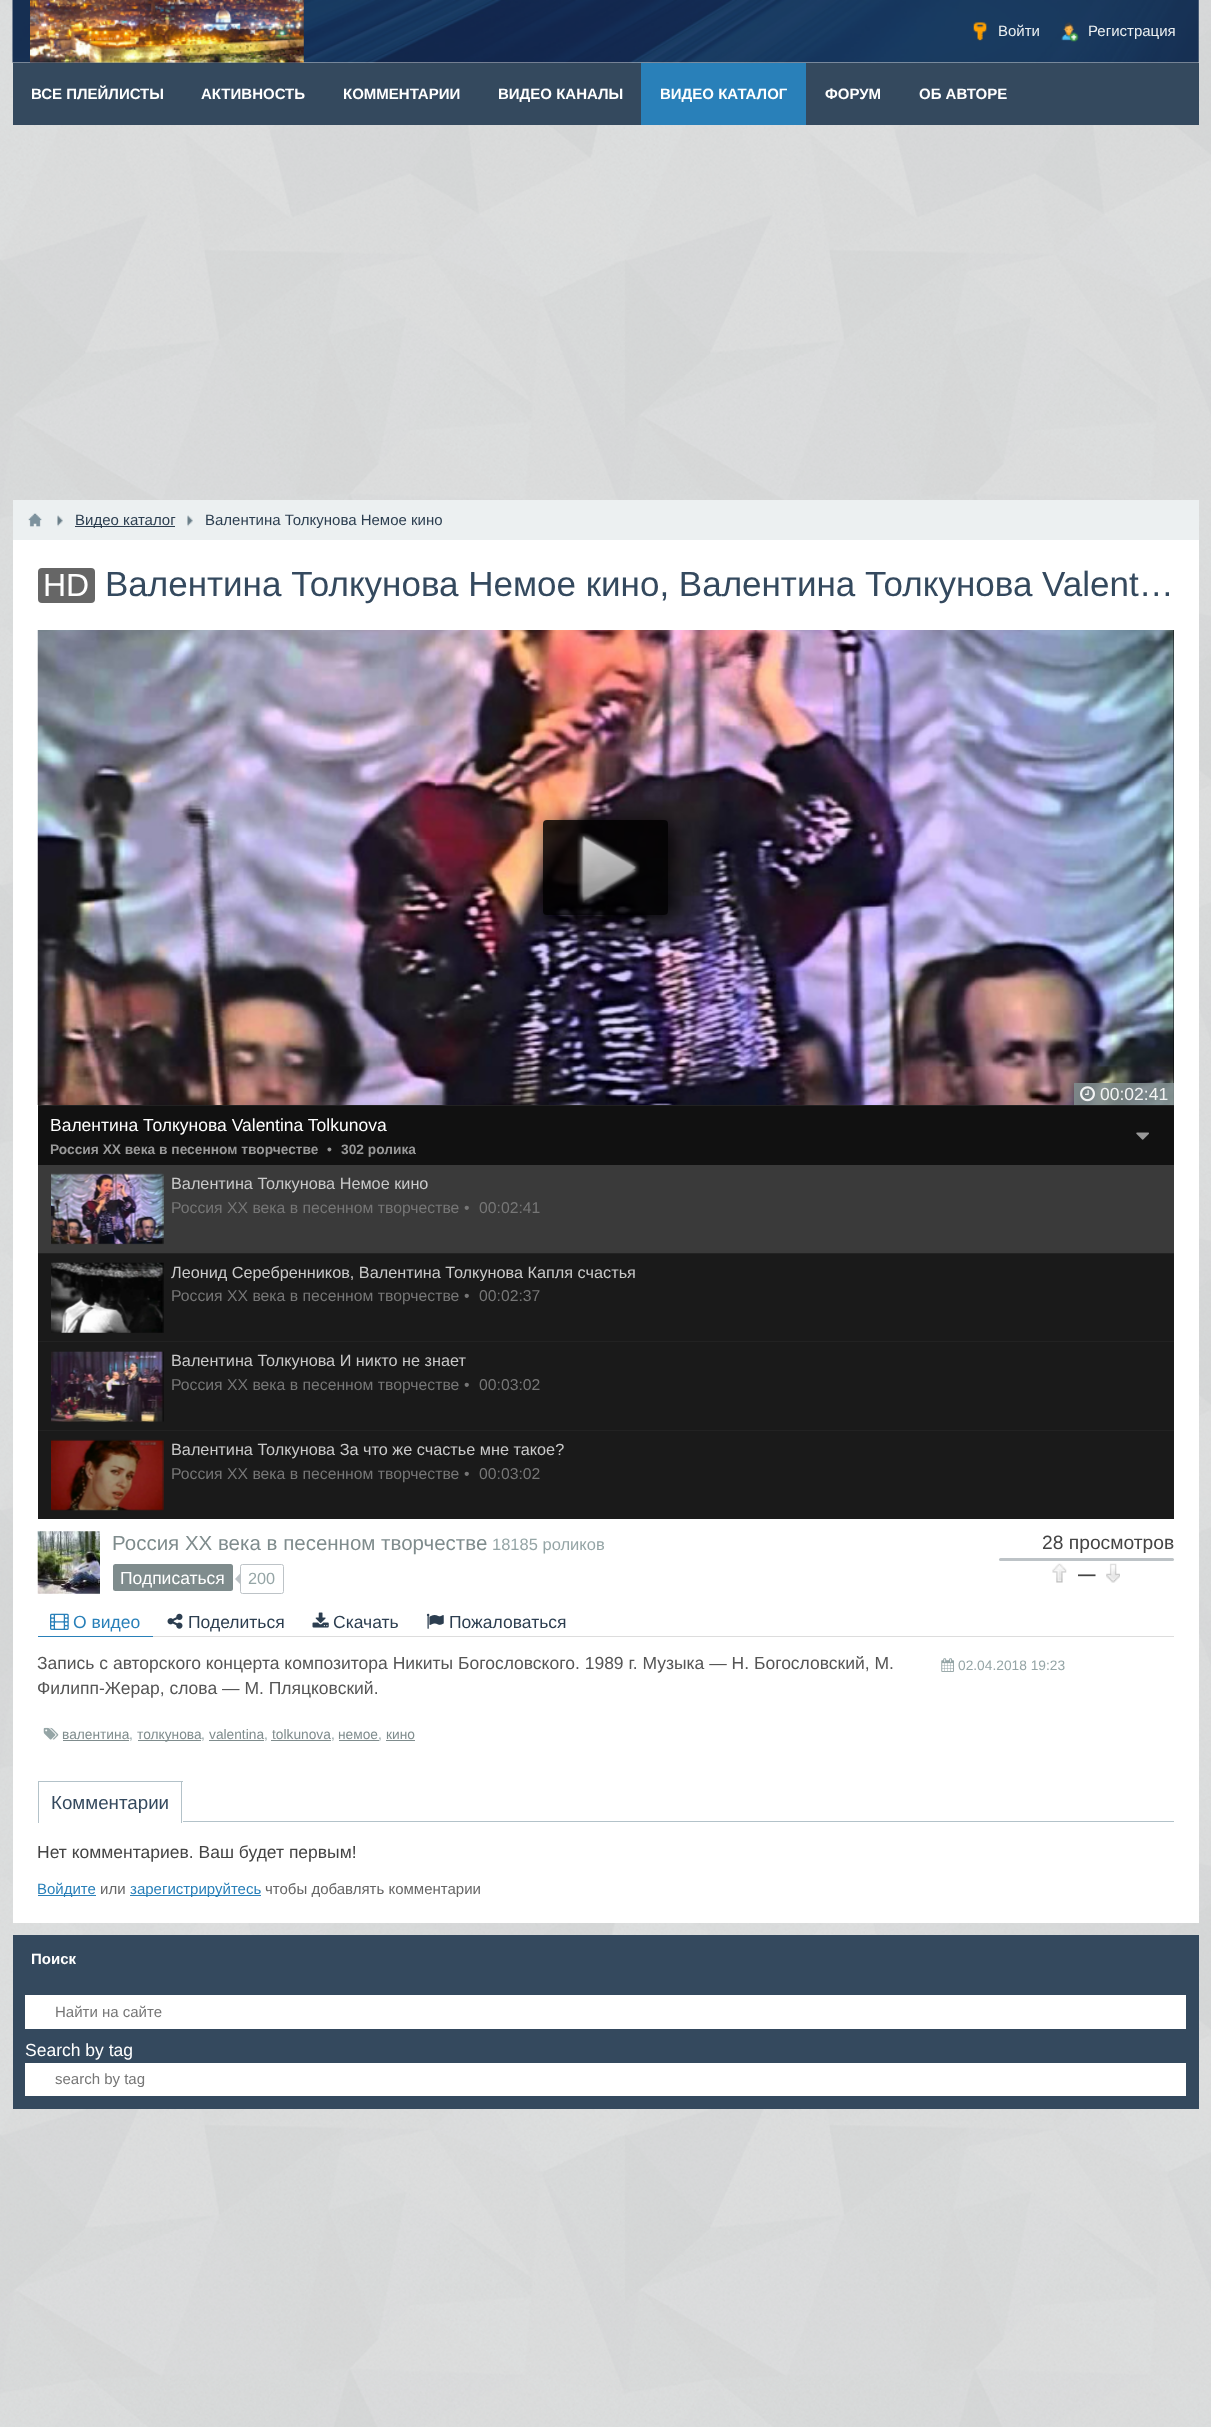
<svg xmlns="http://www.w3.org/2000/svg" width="1211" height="2427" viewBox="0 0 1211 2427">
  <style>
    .t1 { font: 15px Liberation Sans; fill: #ecf0f1; }
    .t2 { font: bold 15px Liberation Sans; fill: #fff; }
    .t3 { font: 15px Liberation Sans; fill: #2c3e50; }
    .t4 { font: 32px Liberation Sans; fill: #fff; }
    .t5 { font: 35px Liberation Sans; fill: #34495e; }
    .t6 { font: 17.5px Liberation Sans; fill: #f2f3f3; }
    .t7 { font: 17.5px Liberation Sans; fill: #fff; }
    .t8 { font: bold 13.75px Liberation Sans; fill: #999; }
    .t9 { font: 16.25px Liberation Sans; fill: #cacaca; }
    .t10 { font: 15.75px Liberation Sans; fill: #767676; }
    .t11 { font: 20.5px Liberation Sans; fill: #7f8c8d; }
    .t12 { font: 16.5px Liberation Sans; fill: #95a5a6; }
    .t13 { font: 16.25px Liberation Sans; fill: #95a5a6; }
    .t14 { font: 19.25px Liberation Sans; fill: #444; }
    .t15 { font: bold 17.5px Liberation Sans; fill: #444; }
    .t16 { font: 17.5px Liberation Sans; fill: #2980b9; }
    .t17 { font: 17.5px Liberation Sans; fill: #2c3e50; }
    .t18 { font: 17.5px Liberation Sans; fill: #555; }
    .t19 { font: 13.75px Liberation Sans; fill: #7f8c8d; }
    .t20 { font: 13.75px Liberation Sans; fill: #95a5a6; }
    .t21 { font: 18.75px Liberation Sans; fill: #34495e; }
    .t22 { font: 17.5px Liberation Sans; fill: #444; }
    .t23 { font: 15px Liberation Sans; fill: #2980b9; }
    .t24 { font: 15px Liberation Sans; fill: #666; }
    .t25 { font: 15px Liberation Sans; fill: #767676; }
  </style>
  <defs>
    <clipPath id="clip1"><path d="M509 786H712V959H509ZM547 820H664C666 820 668 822 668 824V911C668 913 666 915 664 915H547C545 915 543 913 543 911V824C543 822 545 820 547 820Z" clip-rule="evenodd"/></clipPath>
    <clipPath id="clip2"><rect x="171" y="1263" width="990" height="18"/></clipPath>
  </defs>
  <rect width="100%" height="100%" fill="#fff"/>
  <image x="0" y="0" width="1211" height="2427" href="images/1.png"/>
  <image x="12" y="0" width="1187" height="63" href="images/2.png"/>
  <image x="30" y="0" width="274" height="63" href="images/3.png"/>
  <image x="973" y="22" width="14" height="19" href="images/4.png"/>
  <text x="998" y="36" class="t1">Войти</text>
  <image x="1061" y="22" width="18" height="20" href="images/5.png"/>
  <text x="1088" y="36" class="t1">Регистрация</text>
  <rect x="13" y="63" width="1186" height="62" fill="#34495e"/>
  <text x="31" y="99" class="t2">ВСЕ ПЛЕЙЛИСТЫ</text>
  <text x="201" y="99" class="t2">АКТИВНОСТЬ</text>
  <text x="343" y="99" class="t2">КОММЕНТАРИИ</text>
  <text x="498" y="99" class="t2">ВИДЕО КАНАЛЫ</text>
  <rect x="641" y="63" width="165" height="62" fill="#2980b9"/>
  <text x="660" y="99" class="t2">ВИДЕО КАТАЛОГ</text>
  <text x="825" y="99" class="t2">ФОРУМ</text>
  <text x="919" y="99" class="t2">ОБ АВТОРЕ</text>
  <rect x="13" y="540" width="1186" height="1383" fill="#fff"/>
  <rect x="13" y="500" width="1186" height="40" fill="#ecf0f1"/>
  <image x="28" y="513" width="14" height="14" href="images/6.png"/>
  <image x="57" y="515" width="6" height="12" href="images/7.png"/>
  <rect x="75" y="526" width="100" height="1" fill="#2c3e50"/>
  <text x="75" y="525" class="t3">Видео каталог</text>
  <image x="187" y="515" width="6" height="12" href="images/7.png"/>
  <text x="205" y="525" class="t3">Валентина Толкунова Немое кино</text>
  <rect x="38" y="568" width="57" height="35" rx="4" fill="#666"/>
  <text x="43" y="596" class="t4">HD</text>
  <text x="105" y="596" class="t5">Валентина Толкунова Немое кино, Валентина Толкунова Valent…</text>
  <rect x="1173" y="630" width="1" height="475" fill="#000"/>
  <image x="37" y="630" width="1137" height="475" href="images/8.png"/>
  <g clip-path="url(#clip1)">
    <rect x="548" y="825" width="125" height="95" rx="4" fill="#000000d9" filter="blur(12.5px)"/>
  </g>
  <rect x="543" y="820" width="125" height="95" rx="4" fill="#000000d9"/>
  <image x="577" y="833" width="63" height="72" href="images/9.png"/>
  <rect x="1074" y="1083" width="100" height="22" fill="#7f8c8de6"/>
  <image x="1080" y="1086" width="15" height="16" href="images/10.png"/>
  <text x="1100" y="1100" class="t6">00:02:41</text>
  <rect x="38" y="1254" width="1136" height="265" fill="#1a1a1a"/>
  <rect x="38" y="1105" width="1136" height="1" fill="#222"/>
  <rect x="38" y="1106" width="1136" height="59" fill="#111"/>
  <text x="50" y="1131" class="t7">Валентина Толкунова Valentina Tolkunova</text>
  <text x="50" y="1154" class="t8">Россия XX века в песенном творчестве</text>
  <text x="327" y="1154" class="t8">•</text>
  <text x="341" y="1154" class="t8">302 ролика</text>
  <image x="1136" y="1132" width="13" height="8" href="images/11.png"/>
  <rect x="38" y="1165" width="1136" height="88" fill="#3a3a3a"/>
  <rect x="38" y="1253" width="1136" height="1" fill="#222"/>
  <image x="51" y="1173" width="113" height="72" href="images/12.png"/>
  <text x="171" y="1189" class="t9">Валентина Толкунова Немое кино</text>
  <text x="171" y="1213" class="t10">Россия XX века в песенном творчестве</text>
  <text x="464" y="1213" class="t10">•</text>
  <text x="479" y="1213" class="t10">00:02:41</text>
  <rect x="38" y="1341" width="1136" height="1" fill="#222"/>
  <image x="51" y="1262" width="113" height="71" href="images/13.png"/>
  <g clip-path="url(#clip2)">
    <text x="171" y="1278" class="t9">Леонид Серебренников, Валентина Толкунова Капля счастья</text>
  </g>
  <text x="171" y="1301" class="t10">Россия XX века в песенном творчестве</text>
  <text x="464" y="1301" class="t10">•</text>
  <text x="479" y="1301" class="t10">00:02:37</text>
  <rect x="38" y="1430" width="1136" height="1" fill="#222"/>
  <image x="51" y="1351" width="113" height="71" href="images/14.png"/>
  <text x="171" y="1366" class="t9">Валентина Толкунова И никто не знает</text>
  <text x="171" y="1390" class="t10">Россия XX века в песенном творчестве</text>
  <text x="464" y="1390" class="t10">•</text>
  <text x="479" y="1390" class="t10">00:03:02</text>
  <image x="51" y="1439" width="113" height="72" href="images/15.png"/>
  <text x="171" y="1455" class="t9">Валентина Толкунова За что же счастье мне такое?</text>
  <text x="171" y="1479" class="t10">Россия XX века в песенном творчестве</text>
  <text x="464" y="1479" class="t10">•</text>
  <text x="479" y="1479" class="t10">00:03:02</text>
  <image x="37" y="1531" width="63" height="63" href="images/16.png"/>
  <text x="112" y="1550" class="t11">Россия XX века в песенном творчестве</text>
  <text x="492" y="1550" class="t12">18185 роликов</text>
  <rect x="113" y="1564" width="120" height="27" rx="2.5" fill="#7f8c8d"/>
  <text x="120" y="1584" class="t7">Подписаться</text>
  <rect x="240.5" y="1564.5" width="43" height="29" rx="2" fill="none" stroke="#bdc3c7"/>
  <path d="M241 1572.5V1585L235 1579Z" fill="#bdc3c7"/>
  <text x="248" y="1584" class="t13">200</text>
  <text x="1042" y="1549" class="t14">28 просмотров</text>
  <rect x="999" y="1558" width="175" height="3" rx="1.5" fill="#bdc3c7"/>
  <image x="1052" y="1563" width="15" height="20" href="images/17.png"/>
  <text x="1078" y="1580" class="t15">—</text>
  <image x="1106" y="1563" width="14" height="20" href="images/18.png"/>
  <rect x="153" y="1636" width="1021" height="1" fill="#ddd"/>
  <rect x="38" y="1636" width="115" height="1" fill="#2980b9"/>
  <image x="50" y="1613" width="19" height="17" href="images/19.png"/>
  <text x="73" y="1628" class="t16">О видео</text>
  <image x="167" y="1613" width="16" height="16" href="images/20.png"/>
  <text x="188" y="1628" class="t17">Поделиться</text>
  <image x="312" y="1612" width="17" height="16" href="images/21.png"/>
  <text x="333" y="1628" class="t17">Скачать</text>
  <image x="426" y="1613" width="18" height="16" href="images/22.png"/>
  <text x="449" y="1628" class="t17">Пожаловаться</text>
  <text x="37" y="1669" class="t18">Запись с авторского концерта композитора Никиты Богословского. 1989 г. Музыка — Н. Богословский, М.</text>
  <text x="37" y="1694" class="t18">Филипп-Жерар, слова — М. Пляцковский.</text>
  <image x="43" y="1727" width="16" height="13" href="images/23.png"/>
  <text x="62" y="1739" class="t19">валентина</text>
  <rect x="63" y="1740" width="66" height="1" fill="#7f8c8d"/>
  <text x="129" y="1739" class="t20">,</text>
  <rect x="138" y="1740" width="63" height="1" fill="#7f8c8d"/>
  <text x="137" y="1739" class="t19">толкунова</text>
  <text x="201" y="1739" class="t20">,</text>
  <text x="209" y="1739" class="t19">valentina</text>
  <rect x="209" y="1740" width="55" height="1" fill="#7f8c8d"/>
  <text x="264" y="1739" class="t20">,</text>
  <text x="272" y="1739" class="t19">tolkunova</text>
  <rect x="271" y="1740" width="60" height="1" fill="#7f8c8d"/>
  <text x="331" y="1739" class="t20">,</text>
  <text x="338" y="1739" class="t19">немое</text>
  <rect x="339" y="1740" width="40" height="1" fill="#7f8c8d"/>
  <text x="378" y="1739" class="t20">,</text>
  <text x="386" y="1739" class="t19">кино</text>
  <rect x="386" y="1740" width="29" height="1" fill="#7f8c8d"/>
  <image x="941" y="1658" width="13" height="14" href="images/24.png"/>
  <text x="958" y="1670" class="t20">02.04.2018 19:23</text>
  <rect x="183" y="1821" width="991" height="1" fill="#b3c2c9"/>
  <rect x="38" y="1781" width="145" height="1" fill="#b3c2c9"/>
  <rect x="181" y="1781" width="1" height="42" fill="#b3c2c9"/>
  <rect x="38" y="1781" width="1" height="42" fill="#b3c2c9"/>
  <text x="51" y="1809" class="t21">Комментарии</text>
  <text x="37" y="1858" class="t22">Нет комментариев. Ваш будет первым!</text>
  <rect x="38" y="1895" width="58" height="1" fill="#2980b9"/>
  <text x="37" y="1894" class="t23">Войдите</text>
  <text x="100" y="1894" class="t24">или</text>
  <rect x="130" y="1895" width="131" height="1" fill="#2980b9"/>
  <text x="130" y="1894" class="t23">зарегистрируйтесь</text>
  <text x="265" y="1894" class="t24">чтобы добавлять комментарии</text>
  <rect x="13" y="1935" width="1186" height="174" fill="#34495e"/>
  <text x="31" y="1964" class="t2">Поиск</text>
  <rect x="25" y="1995" width="1161" height="34" fill="#fff"/>
  <text x="55" y="2017" class="t25">Найти на сайте</text>
  <text x="25" y="2056" class="t7">Search by tag</text>
  <rect x="25" y="2063" width="1161" height="33" fill="#fff"/>
  <text x="55" y="2084" class="t25">search by tag</text>
</svg>
